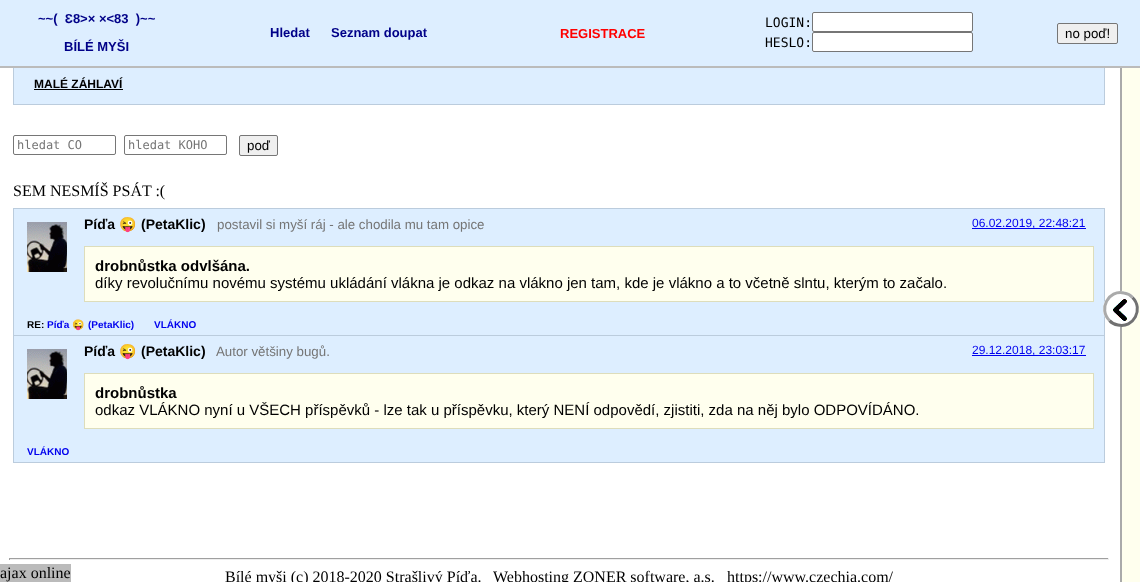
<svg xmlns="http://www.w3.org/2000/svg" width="1140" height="582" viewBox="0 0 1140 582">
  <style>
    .t1 { font: bold 13px Liberation Sans; fill: #008; }
    .t2 { font: bold 13px Liberation Sans; fill: #f00; }
    .t3 { font: 13px DejaVu Sans Mono; fill: #000; }
    .t4 { font: 13.3px Liberation Sans; fill: #000; }
    .t5 { font: bold 12px Liberation Sans; fill: #000; }
    .t6 { font: 12px DejaVu Sans Mono; fill: #757575; }
    .t7 { font: 16px Liberation Serif; fill: #000; }
    .t8 { font: bold 14px Liberation Sans; fill: #000; }
    .t9 { font: bold 14px Noto Color Emoji; fill: #000; }
    .t10 { font: 13.3px Liberation Sans; fill: #757575; }
    .t11 { font: 12px Liberation Sans; fill: #00e; }
    .t12 { font: bold 15px Liberation Sans; fill: #000; }
    .t13 { font: 15px Liberation Sans; fill: #000; }
    .t14 { font: bold 10px Liberation Sans; fill: #000; }
    .t15 { font: bold 10px Liberation Sans; fill: #00e; }
    .t16 { font: bold 10px Noto Color Emoji; fill: #00e; }
  </style>
  <rect width="100%" height="100%" fill="#fff"/>
  <rect x="14" y="68" width="1090" height="36" fill="#def"/>
  <rect x="13.5" y="-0.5" width="1091" height="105" fill="none" stroke="#bcd"/>
  <rect x="0" y="0" width="1140" height="66" fill="#def"/>
  <rect x="0" y="66" width="1140" height="2" fill="#bbb"/>
  <text x="38" y="23" class="t1" xml:space="preserve">~~(  Ɛ8&gt;× ×&lt;83  )~~</text>
  <text x="64" y="51" class="t1">BÍLÉ MYŠI</text>
  <text x="270" y="37" class="t1">Hledat</text>
  <text x="331" y="37" class="t1">Seznam doupat</text>
  <text x="560" y="38" class="t2">REGISTRACE</text>
  <text x="765" y="27" class="t3">LOGIN:</text>
  <rect x="812.5" y="12.5" width="160" height="19" rx="1.5" fill="#fff" stroke="#767676"/>
  <text x="765" y="47" class="t3">HESLO:</text>
  <rect x="812.5" y="32.5" width="160" height="19" rx="1.5" fill="#fff" stroke="#767676"/>
  <rect x="1057.5" y="23.5" width="60" height="20" rx="1.5" fill="#efefef" stroke="#767676"/>
  <text x="1065" y="38" class="t4">no poď!</text>
  <text x="34" y="88" class="t5">MALÉ ZÁHLAVÍ</text>
  <rect x="34" y="89" width="89" height="1" fill="#000"/>
  <rect x="13.5" y="135.5" width="102" height="19" rx="1.5" fill="none" stroke="#767676"/>
  <text x="17" y="149" class="t6">hledat CO</text>
  <rect x="124.5" y="135.5" width="102" height="19" rx="1.5" fill="none" stroke="#767676"/>
  <text x="128" y="149" class="t6">hledat KOHO</text>
  <rect x="239.5" y="135.5" width="38" height="20" rx="1.5" fill="#efefef" stroke="#767676"/>
  <text x="247" y="150" class="t4">poď</text>
  <text x="13" y="196" class="t7">SEM NESMÍŠ PSÁT :(</text>
  <rect x="13.5" y="208.5" width="1091" height="127" fill="#def" stroke="#bcd"/>
  <image x="27" y="222" width="40" height="50" href="images/1.png"/>
  <text x="84" y="229" class="t8">Píďa</text>
  <text x="119" y="229" class="t9">😜</text>
  <text x="141" y="229" class="t8">(PetaKlic)</text>
  <text x="217" y="229" class="t10">postavil si myší ráj - ale chodila mu tam opice</text>
  <rect x="972" y="228" width="114" height="1" fill="#00e"/>
  <text x="972" y="227" class="t11">06.02.2019, 22:48:21</text>
  <rect x="84.5" y="246.5" width="1009" height="55" fill="#ffe" stroke="#ddb"/>
  <text x="95" y="271" class="t12">drobnůstka odvlšána.</text>
  <text x="95" y="288" class="t13">díky revolučnímu novému systému ukládání vlákna je odkaz na vlákno jen tam, kde je vlákno a to včetně slntu, kterým to začalo.</text>
  <text x="27" y="328" class="t14">RE:</text>
  <text x="47" y="328" class="t15">Píďa</text>
  <text x="72" y="328" class="t16">😜</text>
  <text x="88" y="328" class="t15">(PetaKlic)</text>
  <text x="154" y="328" class="t15">VLÁKNO</text>
  <rect x="13.5" y="335.5" width="1091" height="127" fill="#def" stroke="#bcd"/>
  <image x="27" y="349" width="40" height="50" href="images/1.png"/>
  <text x="84" y="356" class="t8">Píďa</text>
  <text x="119" y="356" class="t9">😜</text>
  <text x="141" y="356" class="t8">(PetaKlic)</text>
  <text x="216" y="356" class="t10">Autor většiny bugů.</text>
  <rect x="972" y="355" width="114" height="1" fill="#00e"/>
  <text x="972" y="354" class="t11">29.12.2018, 23:03:17</text>
  <rect x="84.5" y="373.5" width="1009" height="55" fill="#ffe" stroke="#ddb"/>
  <text x="95" y="398" class="t12">drobnůstka</text>
  <text x="95" y="415" class="t13">odkaz VLÁKNO nyní u VŠECH příspěvků - lze tak u příspěvku, který NENÍ odpovědí, zjistiti, zda na něj bylo ODPOVÍDÁNO.</text>
  <text x="27" y="455" class="t15">VLÁKNO</text>
  <rect x="1122" y="68" width="18" height="514" fill="#ffe"/>
  <rect x="1120" y="68" width="2" height="514" fill="#aaa"/>
  <circle cx="1121" cy="309" r="18" fill="#fff"/>
  <image x="1113" y="299" width="14" height="22" href="images/2.png"/>
  <path d="M1132.5 297.5C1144 309 1133.5 328.5 1118 325C1114.5 324.5 1111.5 323 1109.5 320.5" fill="none" stroke="#717171" stroke-width="3"/>
  <path d="M1109.5 320.5C1098 309 1108.5 289.5 1124 293C1127.5 293.5 1130.5 295 1132.5 297.5" fill="none" stroke="#aaa" stroke-width="3"/>
  <rect x="9" y="558" width="1100" height="1" fill="#9f9f9f"/>
  <rect x="1108" y="558" width="1" height="2" fill="#eee"/>
  <rect x="9" y="559" width="1100" height="1" fill="#eee"/>
  <rect x="9" y="558" width="1" height="2" fill="#9f9f9f"/>
  <text x="225" y="582" class="t7">Bílé myši (c) 2018-2020 Strašlivý Píďa.</text>
  <text x="493" y="582" class="t7">Webhosting ZONER software, a.s.</text>
  <text x="727" y="582" class="t7">https://www.czechia.com/</text>
  <rect x="0" y="564" width="71" height="18" fill="#bbb"/>
  <text x="0" y="578" class="t7">ajax online</text>
</svg>
